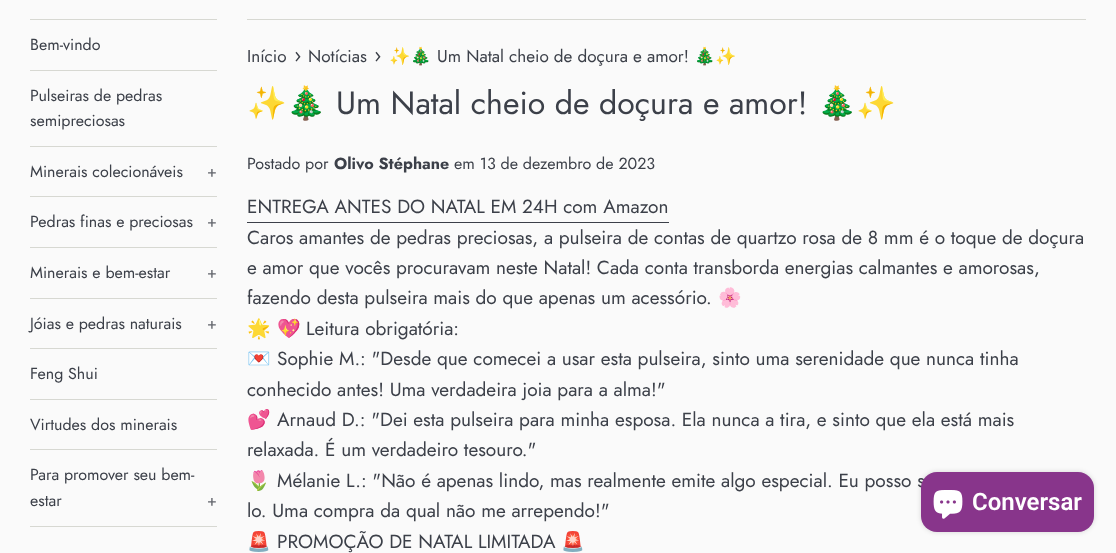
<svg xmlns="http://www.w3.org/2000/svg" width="1116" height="553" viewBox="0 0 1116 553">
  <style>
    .t1 { font: 16px Jost; fill: #3c4049; }
    .t2 { font: 16px Jost; fill: #62656c; }
    .t3 { font: 17.1px Jost; fill: #3c4049; }
    .t4 { font: 21px Jost; fill: #3c4049; }
    .t5 { font: 17.1px Noto Color Emoji; fill: #3c4049; }
    .t6 { font: 32px Noto Color Emoji; fill: #3c4049; }
    .t7 { font: 32px Jost; fill: #3c4049; }
    .t8 { font: 16.1px Jost; fill: #3c4049; }
    .t9 { font: bold 16.1px Jost; fill: #3c4049; }
    .t10 { font: 19px Jost; fill: #3c4049; }
    .t11 { font: 19px Noto Color Emoji; fill: #3c4049; }
    .t12 { font: 600 24px Roboto; fill: #fff; }
  </style>
  <rect width="100%" height="100%" fill="#fafafa"/>
  <rect x="30" y="19" width="187" height="1" fill="#d7d8d2"/>
  <rect x="30" y="70" width="187" height="1" fill="#d7d8d2"/>
  <text x="30" y="50" class="t1">Bem-vindo</text>
  <rect x="30" y="146" width="187" height="1" fill="#d7d8d2"/>
  <text x="30" y="101" class="t1">Pulseiras de pedras</text>
  <text x="30" y="126" class="t1">semipreciosas</text>
  <rect x="30" y="196" width="187" height="1" fill="#d7d8d2"/>
  <text x="30" y="177" class="t1">Minerais colecionáveis</text>
  <text x="207" y="177" class="t2">+</text>
  <rect x="30" y="247" width="187" height="1" fill="#d7d8d2"/>
  <text x="30" y="227" class="t1">Pedras finas e preciosas</text>
  <text x="207" y="227" class="t2">+</text>
  <rect x="30" y="298" width="187" height="1" fill="#d7d8d2"/>
  <text x="30" y="278" class="t1">Minerais e bem-estar</text>
  <text x="207" y="278" class="t2">+</text>
  <rect x="30" y="348" width="187" height="1" fill="#d7d8d2"/>
  <text x="30" y="329" class="t1">Jóias e pedras naturais</text>
  <text x="207" y="329" class="t2">+</text>
  <rect x="30" y="399" width="187" height="1" fill="#d7d8d2"/>
  <text x="30" y="379" class="t1">Feng Shui</text>
  <rect x="30" y="449" width="187" height="1" fill="#d7d8d2"/>
  <text x="30" y="430" class="t1">Virtudes dos minerais</text>
  <rect x="30" y="526" width="187" height="1" fill="#d7d8d2"/>
  <text x="30" y="480" class="t1">Para promover seu bem-</text>
  <text x="30" y="506" class="t1">estar</text>
  <text x="207" y="506" class="t2">+</text>
  <rect x="247" y="19" width="839" height="1" fill="#d7d8d2"/>
  <text x="247" y="62" class="t3">Início</text>
  <text x="294" y="62" class="t4">›</text>
  <text x="308" y="62" class="t3">Notícias</text>
  <text x="374" y="62" class="t4">›</text>
  <text x="389" y="62" class="t5">✨🎄</text>
  <text x="437" y="62" class="t3">Um Natal cheio de doçura e amor!</text>
  <text x="694" y="62" class="t5">🎄✨</text>
  <text x="247" y="114" class="t6">✨🎄</text>
  <text x="336" y="114" class="t7">Um Natal cheio de doçura e amor!</text>
  <text x="817" y="114" class="t6">🎄✨</text>
  <text x="247" y="169" class="t8">Postado por</text>
  <text x="334" y="169" class="t9">Olivo Stéphane</text>
  <text x="454" y="169" class="t8">em 13 de dezembro de 2023</text>
  <text x="247" y="213" class="t10">ENTREGA ANTES DO NATAL EM 24H com Amazon</text>
  <rect x="247" y="222" width="422" height="1" fill="#3c4049"/>
  <text x="247" y="244" class="t10">Caros amantes de pedras preciosas, a pulseira de contas de quartzo rosa de 8 mm é o toque de doçura</text>
  <text x="247" y="274" class="t10">e amor que vocês procuravam neste Natal! Cada conta transborda energias calmantes e amorosas,</text>
  <text x="247" y="304" class="t10">fazendo desta pulseira mais do que apenas um acessório.</text>
  <text x="718" y="304" class="t11">🌸</text>
  <text x="247" y="335" class="t11">🌟</text>
  <text x="277" y="335" class="t11">💖</text>
  <text x="306" y="335" class="t10">Leitura obrigatória:</text>
  <text x="247" y="365" class="t11">💌</text>
  <text x="277" y="365" class="t10">Sophie M.: "Desde que comecei a usar esta pulseira, sinto uma serenidade que nunca tinha</text>
  <text x="247" y="396" class="t10">conhecido antes! Uma verdadeira joia para a alma!"</text>
  <text x="247" y="426" class="t11">💕</text>
  <text x="277" y="426" class="t10">Arnaud D.: "Dei esta pulseira para minha esposa. Ela nunca a tira, e sinto que ela está mais</text>
  <text x="247" y="456" class="t10">relaxada. É um verdadeiro tesouro."</text>
  <text x="247" y="487" class="t11">🌷</text>
  <text x="277" y="487" class="t10">Mélanie L.: "Não é apenas lindo, mas realmente emite algo especial. Eu posso s</text>
  <text x="247" y="517" class="t10">lo. Uma compra da qual não me arrependo!"</text>
  <text x="247" y="548" class="t11">🚨</text>
  <text x="277" y="548" class="t10">PROMOÇÃO DE NATAL LIMITADA</text>
  <text x="561" y="548" class="t11">🚨</text>
  <rect x="921" y="472" width="173" height="60" rx="16" fill="#00000026" filter="blur(2.5px)"/>
  <rect x="921" y="472" width="173" height="60" rx="16" fill="#88358b"/>
  <image x="933" y="490" width="30" height="29" href="images/1.png"/>
  <text x="972" y="510" class="t12">Conversar</text>
</svg>
